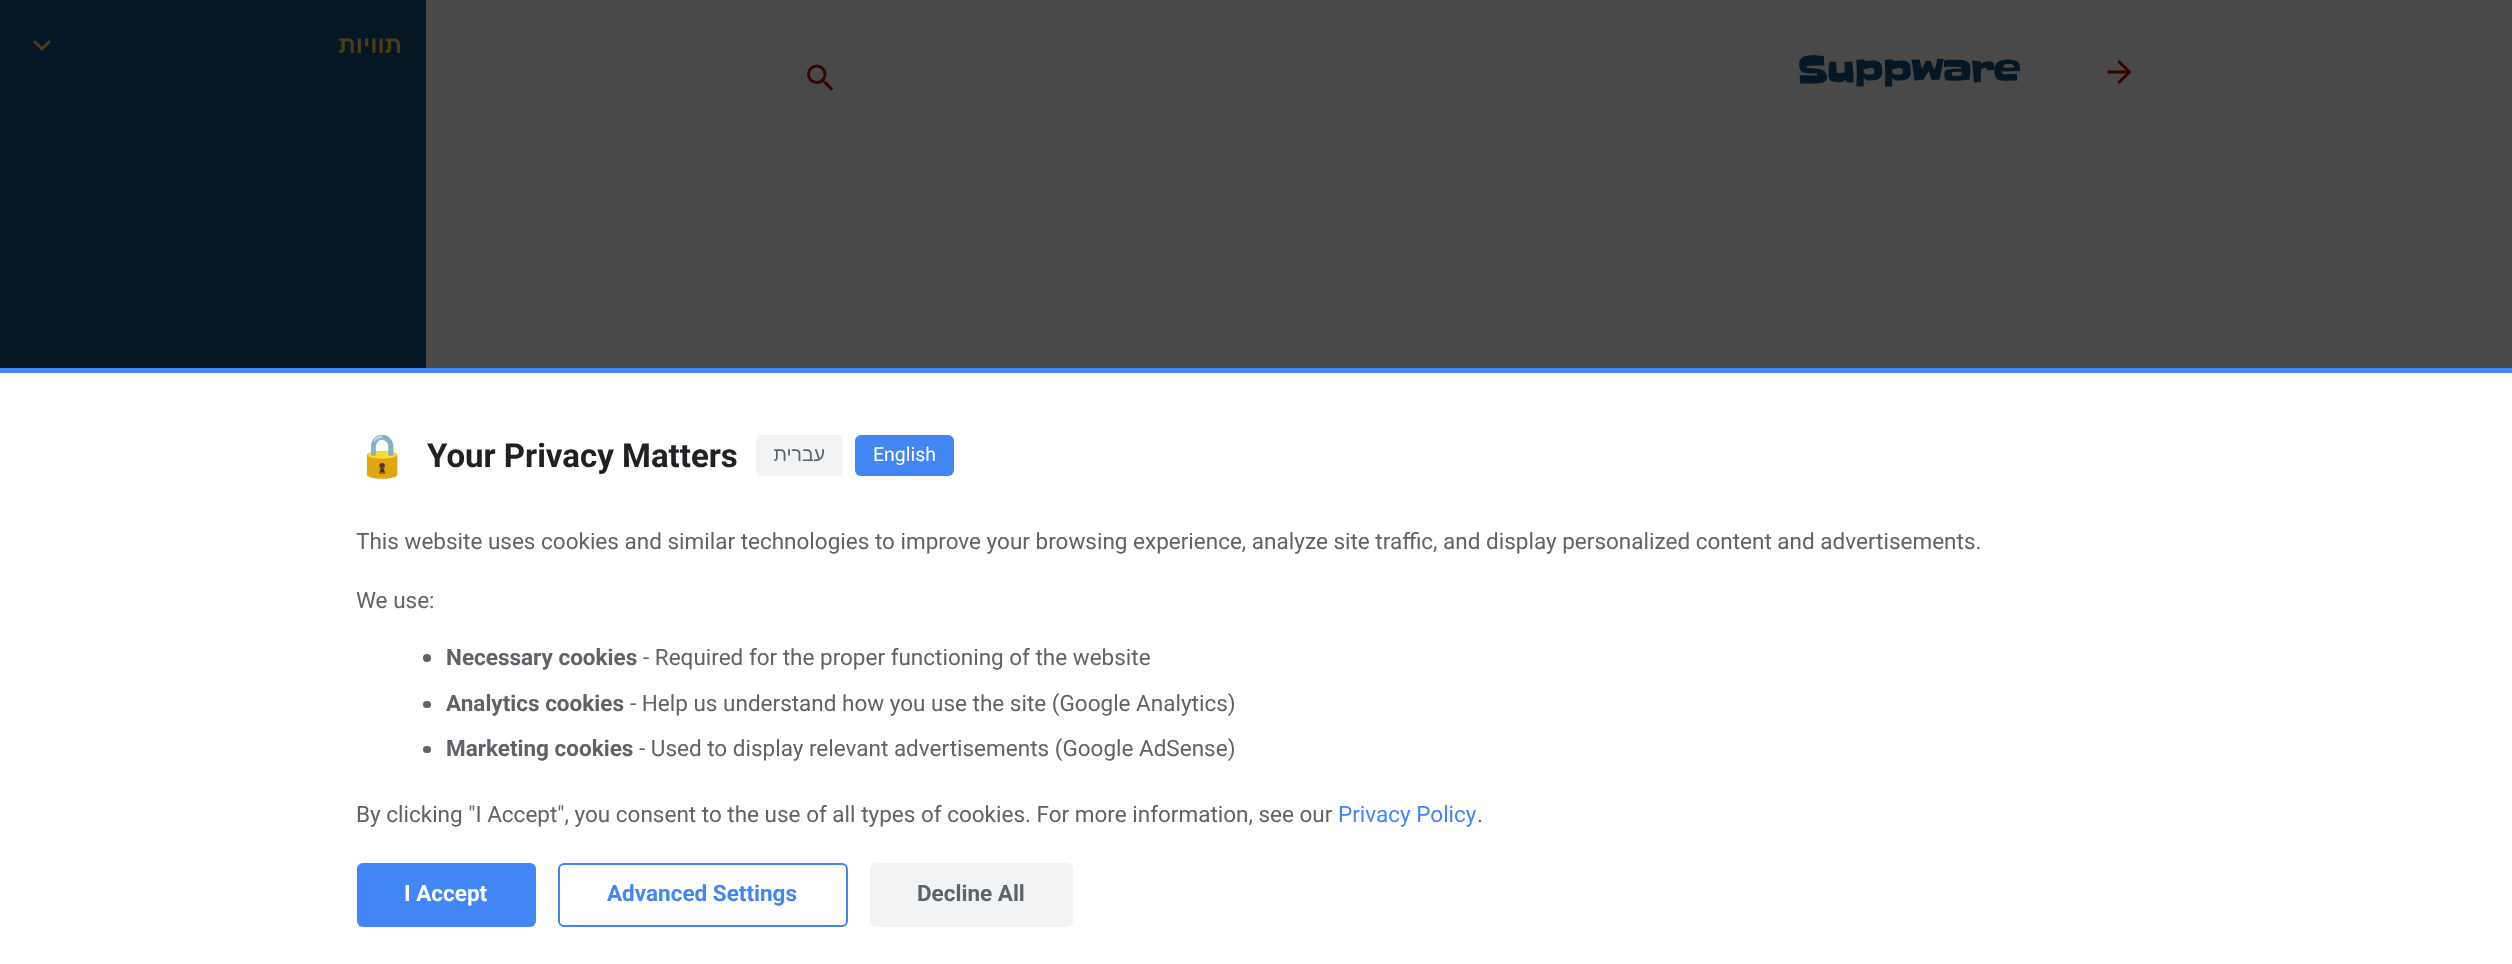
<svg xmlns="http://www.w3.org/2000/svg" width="2512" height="964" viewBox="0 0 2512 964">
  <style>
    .t1 { font: bold 24px Liberation Sans; direction: rtl; fill: #4a3d17; }
    .t2 { font: bold 36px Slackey; fill: #051725; }
    .t3 { font: 42px Noto Color Emoji; fill: #757575; }
    .t4 { font: bold 33px Roboto; fill: #202124; }
    .t5 { font: 19.5px Liberation Sans; direction: rtl; fill: #5f6368; }
    .t6 { font: 19.5px Roboto; fill: #fff; }
    .t7 { font: 22.5px Roboto; fill: #5f6368; }
    .t8 { font: bold 22.5px Roboto; fill: #5f6368; }
    .t9 { font: 22.5px Roboto; fill: #4285f4; }
    .t10 { font: bold 22.5px Roboto; fill: #fff; }
    .t11 { font: bold 22.5px Roboto; fill: #4285f4; }
  </style>
  <rect width="100%" height="100%" fill="#494949"/>
  <rect x="0" y="0" width="426" height="368" fill="#051725"/>
  <image x="33" y="40" width="18" height="11" href="images/1.png"/>
  <text x="402" y="53" class="t1">תוויות</text>
  <image x="807" y="64" width="27" height="27" href="images/2.png"/>
  <text x="1797" y="84" class="t2">Suppware</text>
  <image x="2107" y="60" width="25" height="24" href="images/3.png"/>
  <rect x="0" y="373" width="2512" height="591" fill="#fff"/>
  <rect x="0" y="368" width="2512" height="5" fill="#4285f4"/>
  <text x="356" y="470" class="t3">🔒</text>
  <text x="427" y="467" class="t4">Your Privacy Matters</text>
  <rect x="756" y="435" width="87" height="41" rx="6" fill="#f1f3f4"/>
  <text x="825" y="461" class="t5">עברית</text>
  <rect x="855" y="435" width="99" height="41" rx="6" fill="#4285f4"/>
  <text x="873" y="461" class="t6">English</text>
  <text x="356" y="549" class="t7">This website uses cookies and similar technologies to improve your browsing experience, analyze site traffic, and display personalized content and advertisements.</text>
  <text x="356" y="608" class="t7">We use:</text>
  <circle cx="427" cy="658" r="4" fill="#5f6368"/>
  <text x="446" y="665" class="t8">Necessary cookies</text>
  <text x="643" y="665" class="t7">- Required for the proper functioning of the website</text>
  <rect x="423" y="701" width="8" height="7" rx="3.5" fill="#5f6368"/>
  <text x="446" y="711" class="t8">Analytics cookies</text>
  <text x="630" y="711" class="t7">- Help us understand how you use the site (Google Analytics)</text>
  <rect x="423" y="746" width="8" height="7" rx="3.5" fill="#5f6368"/>
  <text x="446" y="756" class="t8">Marketing cookies</text>
  <text x="639" y="756" class="t7">- Used to display relevant advertisements (Google AdSense)</text>
  <text x="356" y="822" class="t7">By clicking "I Accept", you consent to the use of all types of cookies. For more information, see our</text>
  <text x="1338" y="822" class="t9">Privacy Policy</text>
  <text x="1477" y="822" class="t7">.</text>
  <rect x="357" y="863" width="179" height="64" rx="6" fill="#4285f4"/>
  <text x="404" y="901" class="t10">I Accept</text>
  <rect x="559" y="864" width="288" height="62" rx="5" fill="none" stroke="#4285f4" stroke-width="2"/>
  <text x="607" y="901" class="t11">Advanced Settings</text>
  <rect x="870" y="863" width="203" height="64" rx="6" fill="#f1f3f4"/>
  <text x="917" y="901" class="t8">Decline All</text>
</svg>
